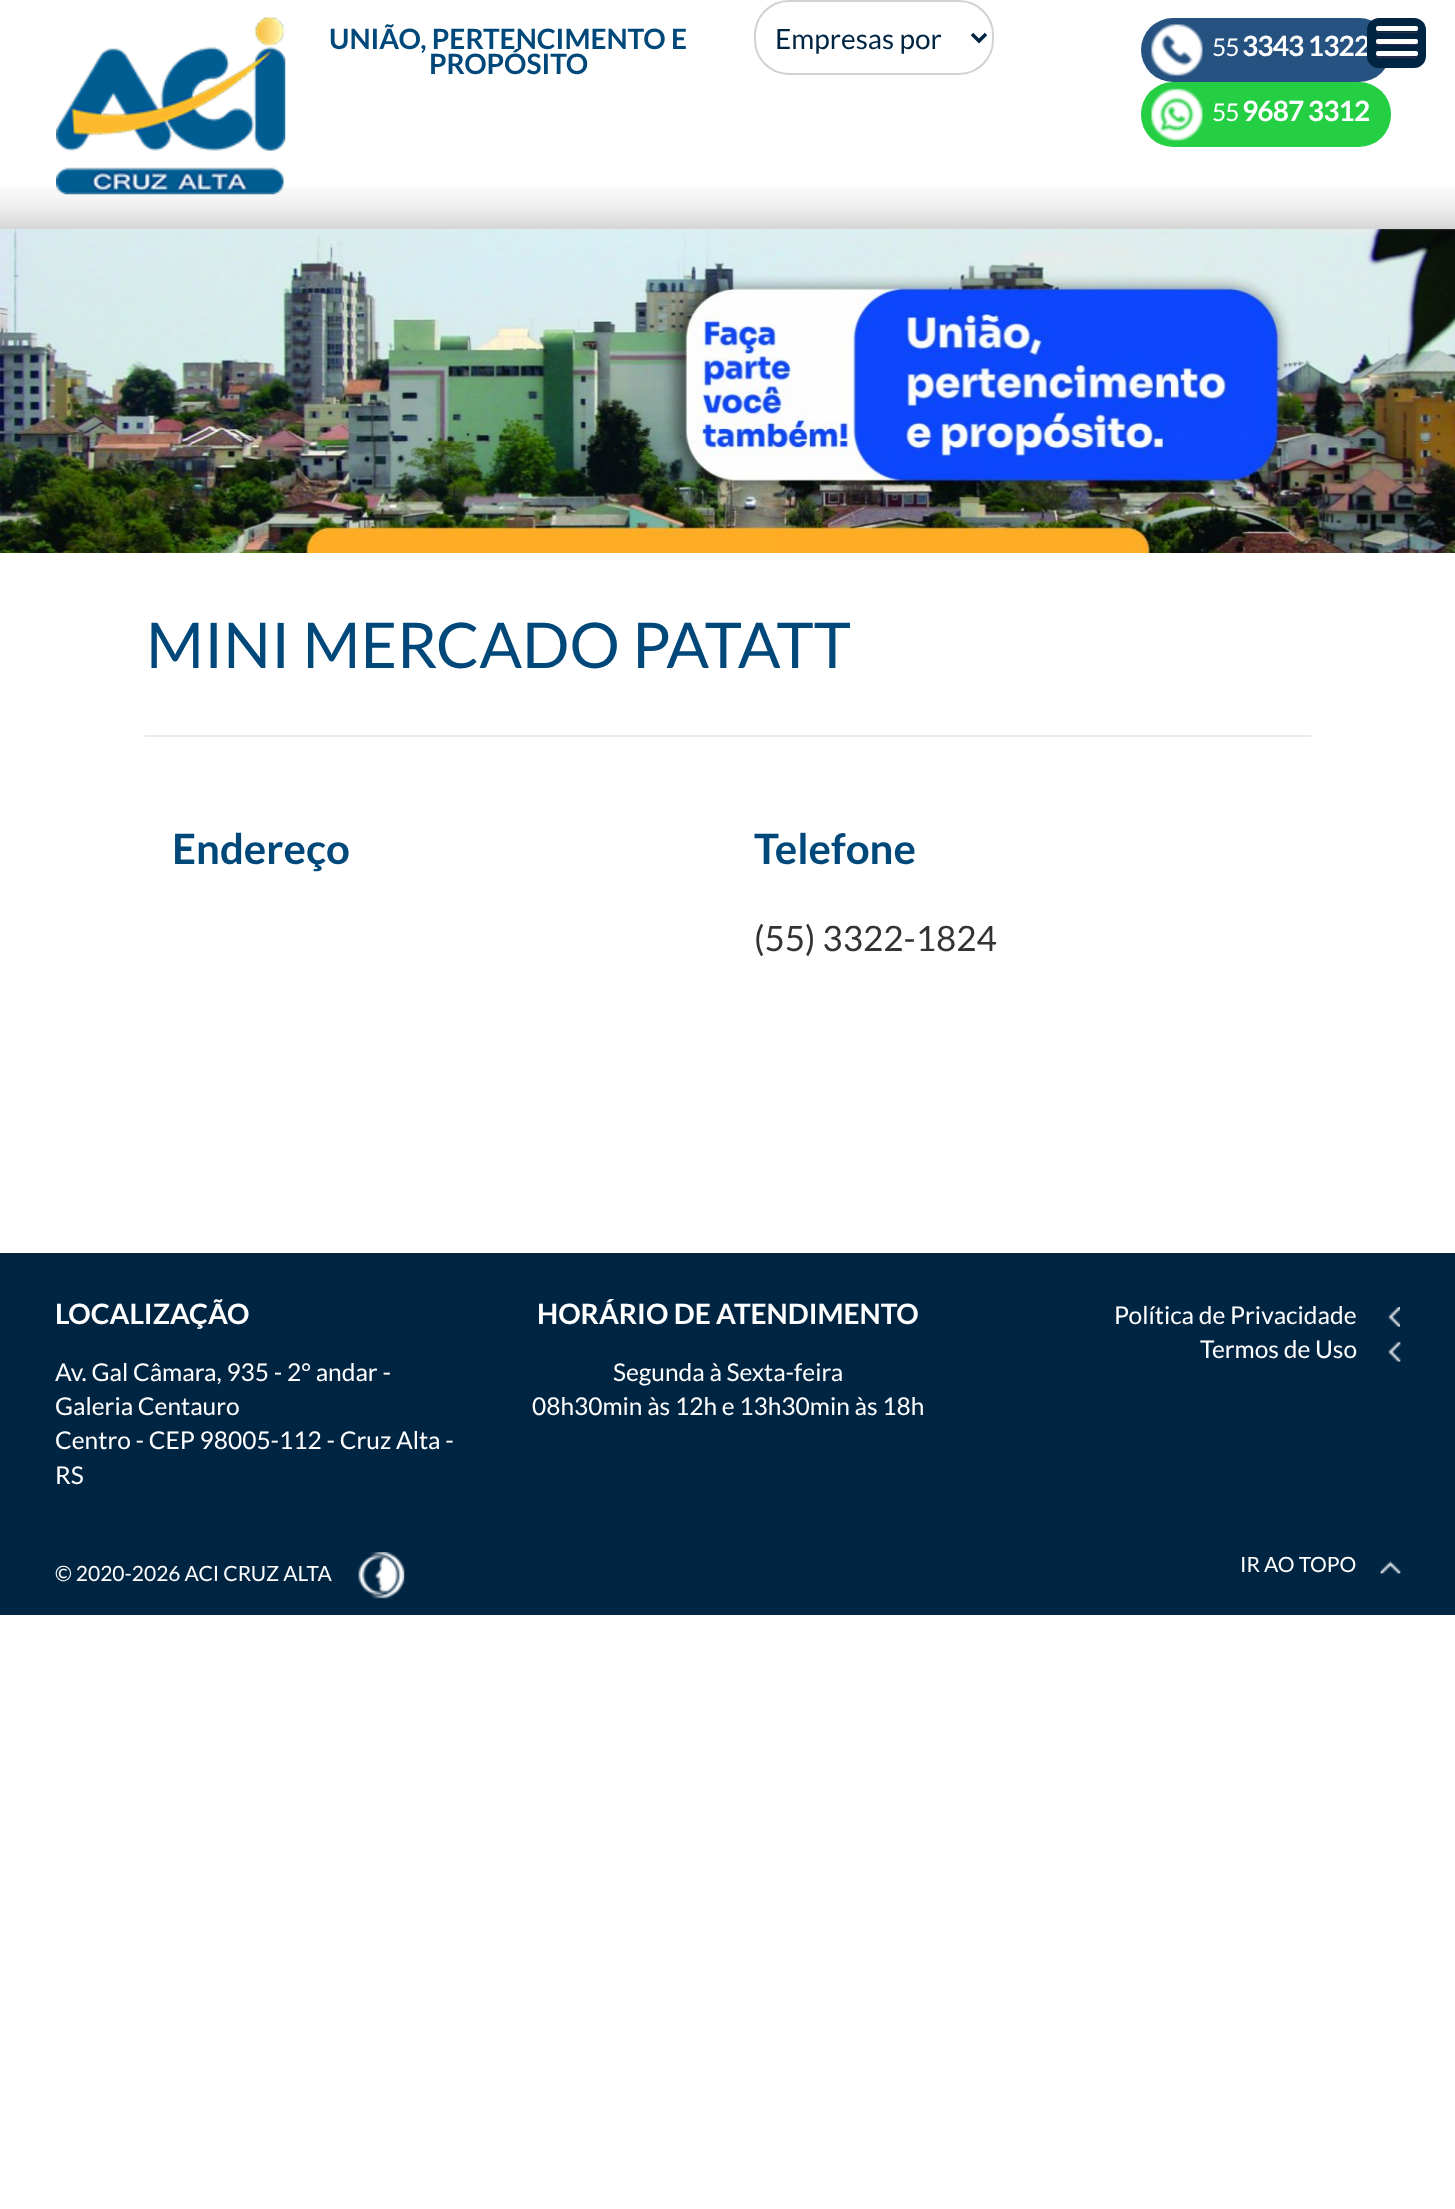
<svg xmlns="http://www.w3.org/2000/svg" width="1455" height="2209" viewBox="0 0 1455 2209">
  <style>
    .t1 { font: bold 28px Lato; fill: #00487a; }
    .t2 { font: 28px Lato; fill: #002543; }
    .t3 { font: 24.5px Lato; letter-spacing: -0.9px; fill: #fff; }
    .t4 { font: bold 28px Lato; letter-spacing: -0.9px; fill: #fff; }
    .t5 { font: 63px Lato; fill: #00487a; }
    .t6 { font: bold 42px Lato; fill: #00487a; }
    .t7 { font: 35px Lato; fill: #333; }
    .t8 { font: bold 28px Lato; fill: #fff; }
    .t9 { font: 24.5px Lato; fill: #fff; }
    .t10 { font: 21px Lato; fill: #fff; }
  </style>
  <rect width="100%" height="100%" fill="#fff"/>
  <image x="0" y="187" width="1455" height="42" href="images/1.png"/>
  <image x="56" y="17" width="230" height="178" href="images/2.png"/>
  <text x="329" y="49" class="t1">UNIÃO, PERTENCIMENTO E</text>
  <text x="429" y="74" class="t1">PROPÓSITO</text>
  <rect x="755" y="1" width="238" height="73" rx="34" fill="none" stroke="#d2d2d2" stroke-width="2"/>
  <path d="M972 34L979 41L986 34" fill="none" stroke="#002543" stroke-width="3.5"/>
  <text x="775" y="49" class="t2">Empresas por</text>
  <rect x="1141" y="18" width="250" height="64" rx="32" fill="#255281"/>
  <image x="1151" y="24" width="52" height="52" href="images/3.png"/>
  <text x="1212" y="56" class="t3">55</text>
  <text x="1242" y="56" class="t4">3343 1322</text>
  <rect x="1141" y="82" width="250" height="65" rx="32" fill="#24cf44"/>
  <image x="1151" y="88" width="52" height="53" href="images/4.png"/>
  <text x="1212" y="121" class="t3">55</text>
  <text x="1242" y="121" class="t4">9687 3312</text>
  <rect x="1367" y="18" width="59" height="50" rx="12" fill="#002543"/>
  <path d="M1376 31V32L1378 33H1410C1410 33 1418 35 1418 31V29C1418 33 1413 32 1409 32H1390C1388 32 1378 33 1376 31Z" fill="#2a2d4d"/>
  <rect x="1376" y="26" width="42" height="5" rx="2" fill="#fff"/>
  <path d="M1376 43C1376 47 1384 45 1384 45H1410C1410 45 1418 47 1418 43V41C1418 45 1414 44 1409 44H1396C1394 44 1377 45 1376 43Z" fill="#2a2d4d"/>
  <rect x="1376" y="39" width="42" height="5" rx="2" fill="#fff"/>
  <path d="M1376 55C1376 60 1382 58 1384 58H1410C1410 58 1418 60 1418 56V54C1418 58 1412 56 1409 56H1390C1388 56 1378 57 1376 55Z" fill="#2a2d4d"/>
  <rect x="1376" y="51" width="42" height="5" rx="2" fill="#fff"/>
  <image x="0" y="229" width="1455" height="324" href="images/5.png"/>
  <rect x="145" y="735" width="1166" height="2" fill="#ebebeb"/>
  <text x="146" y="668" class="t5">MINI MERCADO PATATT</text>
  <text x="172" y="864" class="t6">Endereço</text>
  <text x="754" y="864" class="t6">Telefone</text>
  <text x="754" y="951" class="t7">(55) 3322-1824</text>
  <rect x="0" y="1253" width="1455" height="362" fill="#002543"/>
  <text x="55" y="1324" class="t8">LOCALIZAÇÃO</text>
  <text x="55" y="1381" class="t9">Av. Gal Câmara, 935 - 2° andar -</text>
  <text x="55" y="1415" class="t9">Galeria Centauro</text>
  <text x="55" y="1449" class="t9">Centro - CEP 98005-112 - Cruz Alta -</text>
  <text x="55" y="1484" class="t9">RS</text>
  <text x="537" y="1324" class="t8">HORÁRIO DE ATENDIMENTO</text>
  <text x="613" y="1381" class="t9">Segunda à Sexta-feira</text>
  <text x="532" y="1415" class="t9">08h30min às 12h e 13h30min às 18h</text>
  <image x="1387" y="1307" width="13" height="20" href="images/6.png"/>
  <text x="1114" y="1324" class="t9">Política de Privacidade</text>
  <image x="1387" y="1341" width="14" height="21" href="images/7.png"/>
  <text x="1200" y="1358" class="t9">Termos de Uso</text>
  <text x="55" y="1581" class="t10">© 2020-2026 ACI CRUZ ALTA</text>
  <image x="358" y="1552" width="47" height="47" href="images/8.png"/>
  <text x="1240" y="1572" class="t10">IR AO TOPO</text>
  <image x="1380" y="1560" width="21" height="14" href="images/9.png"/>
</svg>
